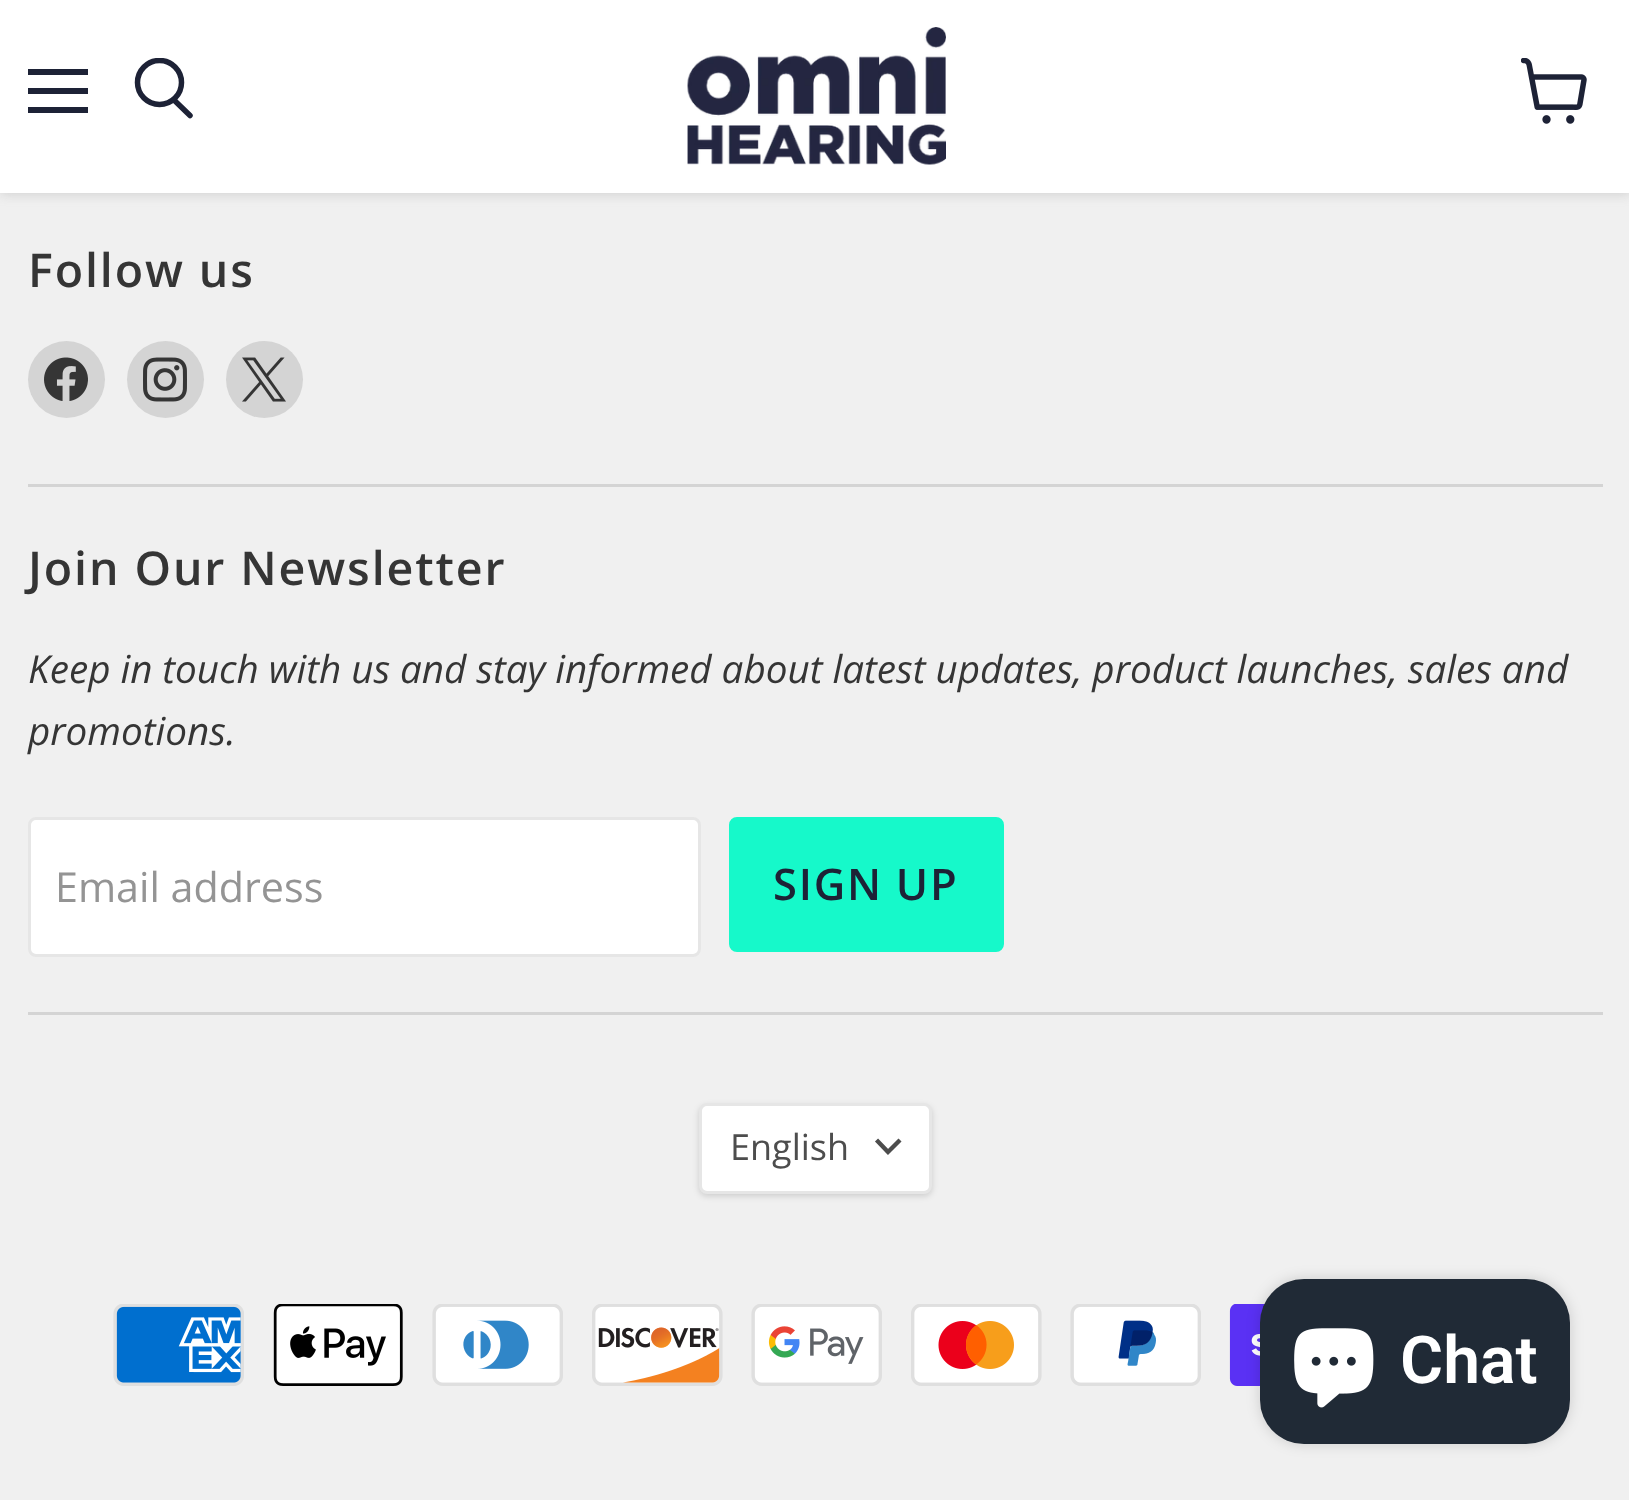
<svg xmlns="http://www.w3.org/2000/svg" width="1629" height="1500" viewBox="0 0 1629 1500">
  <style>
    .t1 { font: 600 46.5px Open Sans; letter-spacing: 1.9px; fill: #353535; }
    .t2 { font: italic 38.65px Open Sans; fill: #353535; }
    .t3 { font: 41.25px Open Sans; fill: #949494; }
    .t4 { font: 600 43.5px Open Sans; letter-spacing: 1.75px; fill: #1d2236; }
    .t5 { font: 36px Open Sans; fill: #4d4d4d; }
    .t6 { font: 600 66px Roboto; fill: #fff; }
  </style>
  <defs>
    <clipPath id="clip1"><rect x="132" y="58" width="63" height="66"/></clipPath>
  </defs>
  <rect width="100%" height="100%" fill="#f0f0f0"/>
  <rect x="0" y="3" width="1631" height="192" fill="#80808040" filter="blur(5.5px)"/>
  <rect x="0" y="0" width="1629" height="193" fill="#fff"/>
  <rect x="28" y="69" width="60" height="6" fill="#1d2236"/>
  <rect x="28" y="88" width="60" height="6" fill="#1d2236"/>
  <rect x="28" y="107" width="60" height="6" fill="#1d2236"/>
  <path d="M190 115.5L174.5 100.5" fill="none" stroke="#1d2236" stroke-width="5.5" stroke-linecap="round"/>
  <g clip-path="url(#clip1)">
    <circle cx="159.5" cy="82.5" r="22" fill="none" stroke="#1d2236" stroke-width="5.5"/>
  </g>
  <image x="687" y="27" width="259" height="138" href="images/1.png"/>
  <image x="1521" y="58" width="66" height="66" href="images/2.png"/>
  <rect x="28" y="484" width="1575" height="3" fill="#d4d4d4"/>
  <text x="28" y="287" class="t1">Follow us</text>
  <circle cx="66.5" cy="379.5" r="38.5" fill="#d4d4d4"/>
  <image x="44" y="357" width="44" height="44" href="images/3.png"/>
  <circle cx="165.5" cy="379.5" r="38.5" fill="#d4d4d4"/>
  <image x="143" y="357" width="44" height="45" href="images/4.png"/>
  <circle cx="264.5" cy="379.5" r="38.5" fill="#d4d4d4"/>
  <image x="242" y="357" width="44" height="45" href="images/5.png"/>
  <rect x="28" y="1012" width="1575" height="3" fill="#d4d4d4"/>
  <text x="28" y="585" class="t1">Join Our Newsletter</text>
  <text x="28" y="683" word-spacing="-0.1" class="t2">Keep in touch with us and stay informed about latest updates, product launches, sales and</text>
  <text x="28" y="745" class="t2">promotions.</text>
  <rect x="29.5" y="818.5" width="670" height="137" rx="6.5" fill="#fff" stroke="#e6e6e6" stroke-width="3"/>
  <text x="55" y="902" class="t3">Email address</text>
  <rect x="730.5" y="818.5" width="272" height="132" rx="6.5" fill="#16f9ca" stroke="#16f9ca" stroke-width="3"/>
  <text x="773" y="900" class="t4">SIGN UP</text>
  <rect x="699" y="1106" width="233" height="90" rx="8" fill="#00000026" filter="blur(3px)"/>
  <rect x="700.5" y="1104.5" width="230" height="88" rx="6.5" fill="#fff" stroke="#e6e6e6" stroke-width="3"/>
  <text x="730" y="1160" class="t5">English</text>
  <path d="M888 1152L898.5 1141.5M888 1152L878 1141.5" fill="none" stroke="#4d4d4d" stroke-width="4.3" stroke-linecap="square"/>
  <image x="113" y="1304" width="131" height="82" href="images/6.png"/>
  <image x="273" y="1304" width="130" height="82" href="images/7.png"/>
  <image x="432" y="1304" width="131" height="82" href="images/8.png"/>
  <image x="592" y="1304" width="131" height="82" href="images/9.png"/>
  <image x="751" y="1304" width="131" height="82" href="images/10.png"/>
  <image x="911" y="1304" width="131" height="82" href="images/11.png"/>
  <image x="1070" y="1304" width="131" height="82" href="images/12.png"/>
  <image x="1229" y="1304" width="36" height="82" href="images/13.png"/>
  <rect x="1260" y="1279" width="310" height="165" rx="44" fill="#00000026" filter="blur(7px)"/>
  <rect x="1260" y="1279" width="310" height="165" rx="44" fill="#202a36"/>
  <image x="1294" y="1328" width="80" height="80" href="images/14.png"/>
  <text x="1400" y="1383" class="t6">Chat</text>
</svg>
